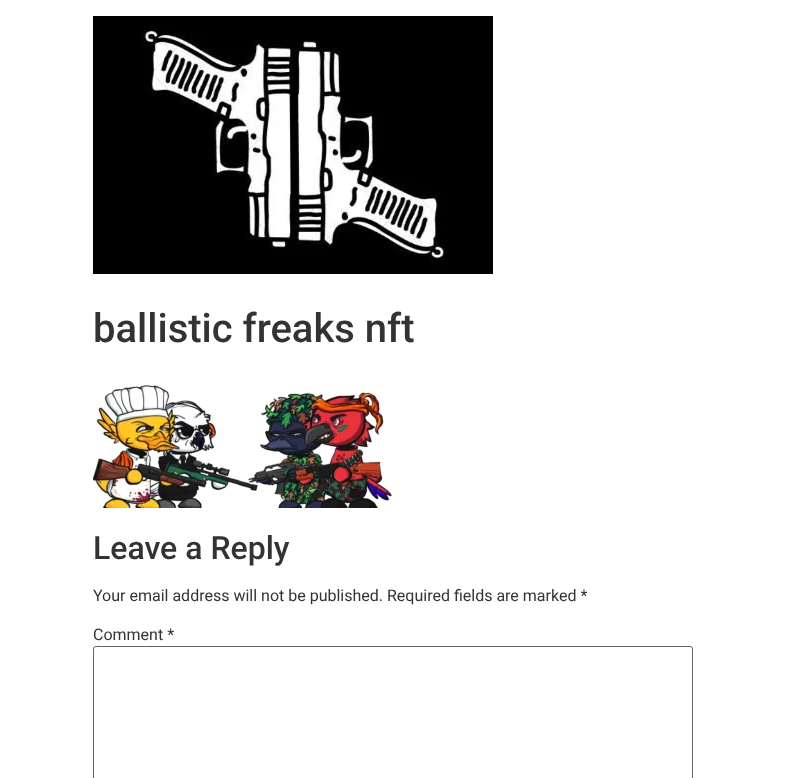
<svg xmlns="http://www.w3.org/2000/svg" width="785" height="778" viewBox="0 0 785 778">
  <style>
    .t1 { font: 500 40px Roboto; fill: #333; }
    .t2 { font: 500 32px Roboto; fill: #333; }
    .t3 { font: 16px Roboto; fill: #333; }
  </style>
  <rect width="100%" height="100%" fill="#fff"/>
  <image x="93" y="16" width="400" height="258" href="images/1.png"/>
  <text x="93" y="342" class="t1">ballistic freaks nft</text>
  <image x="93" y="385" width="299" height="123" href="images/2.png"/>
  <text x="93" y="559" class="t2">Leave a Reply</text>
  <text x="93" y="601" class="t3">Your email address will not be published. Required fields are marked *</text>
  <text x="93" y="640" class="t3">Comment *</text>
  <rect x="93.5" y="646.5" width="599" height="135" rx="2.5" fill="none" stroke="#666"/>
</svg>
